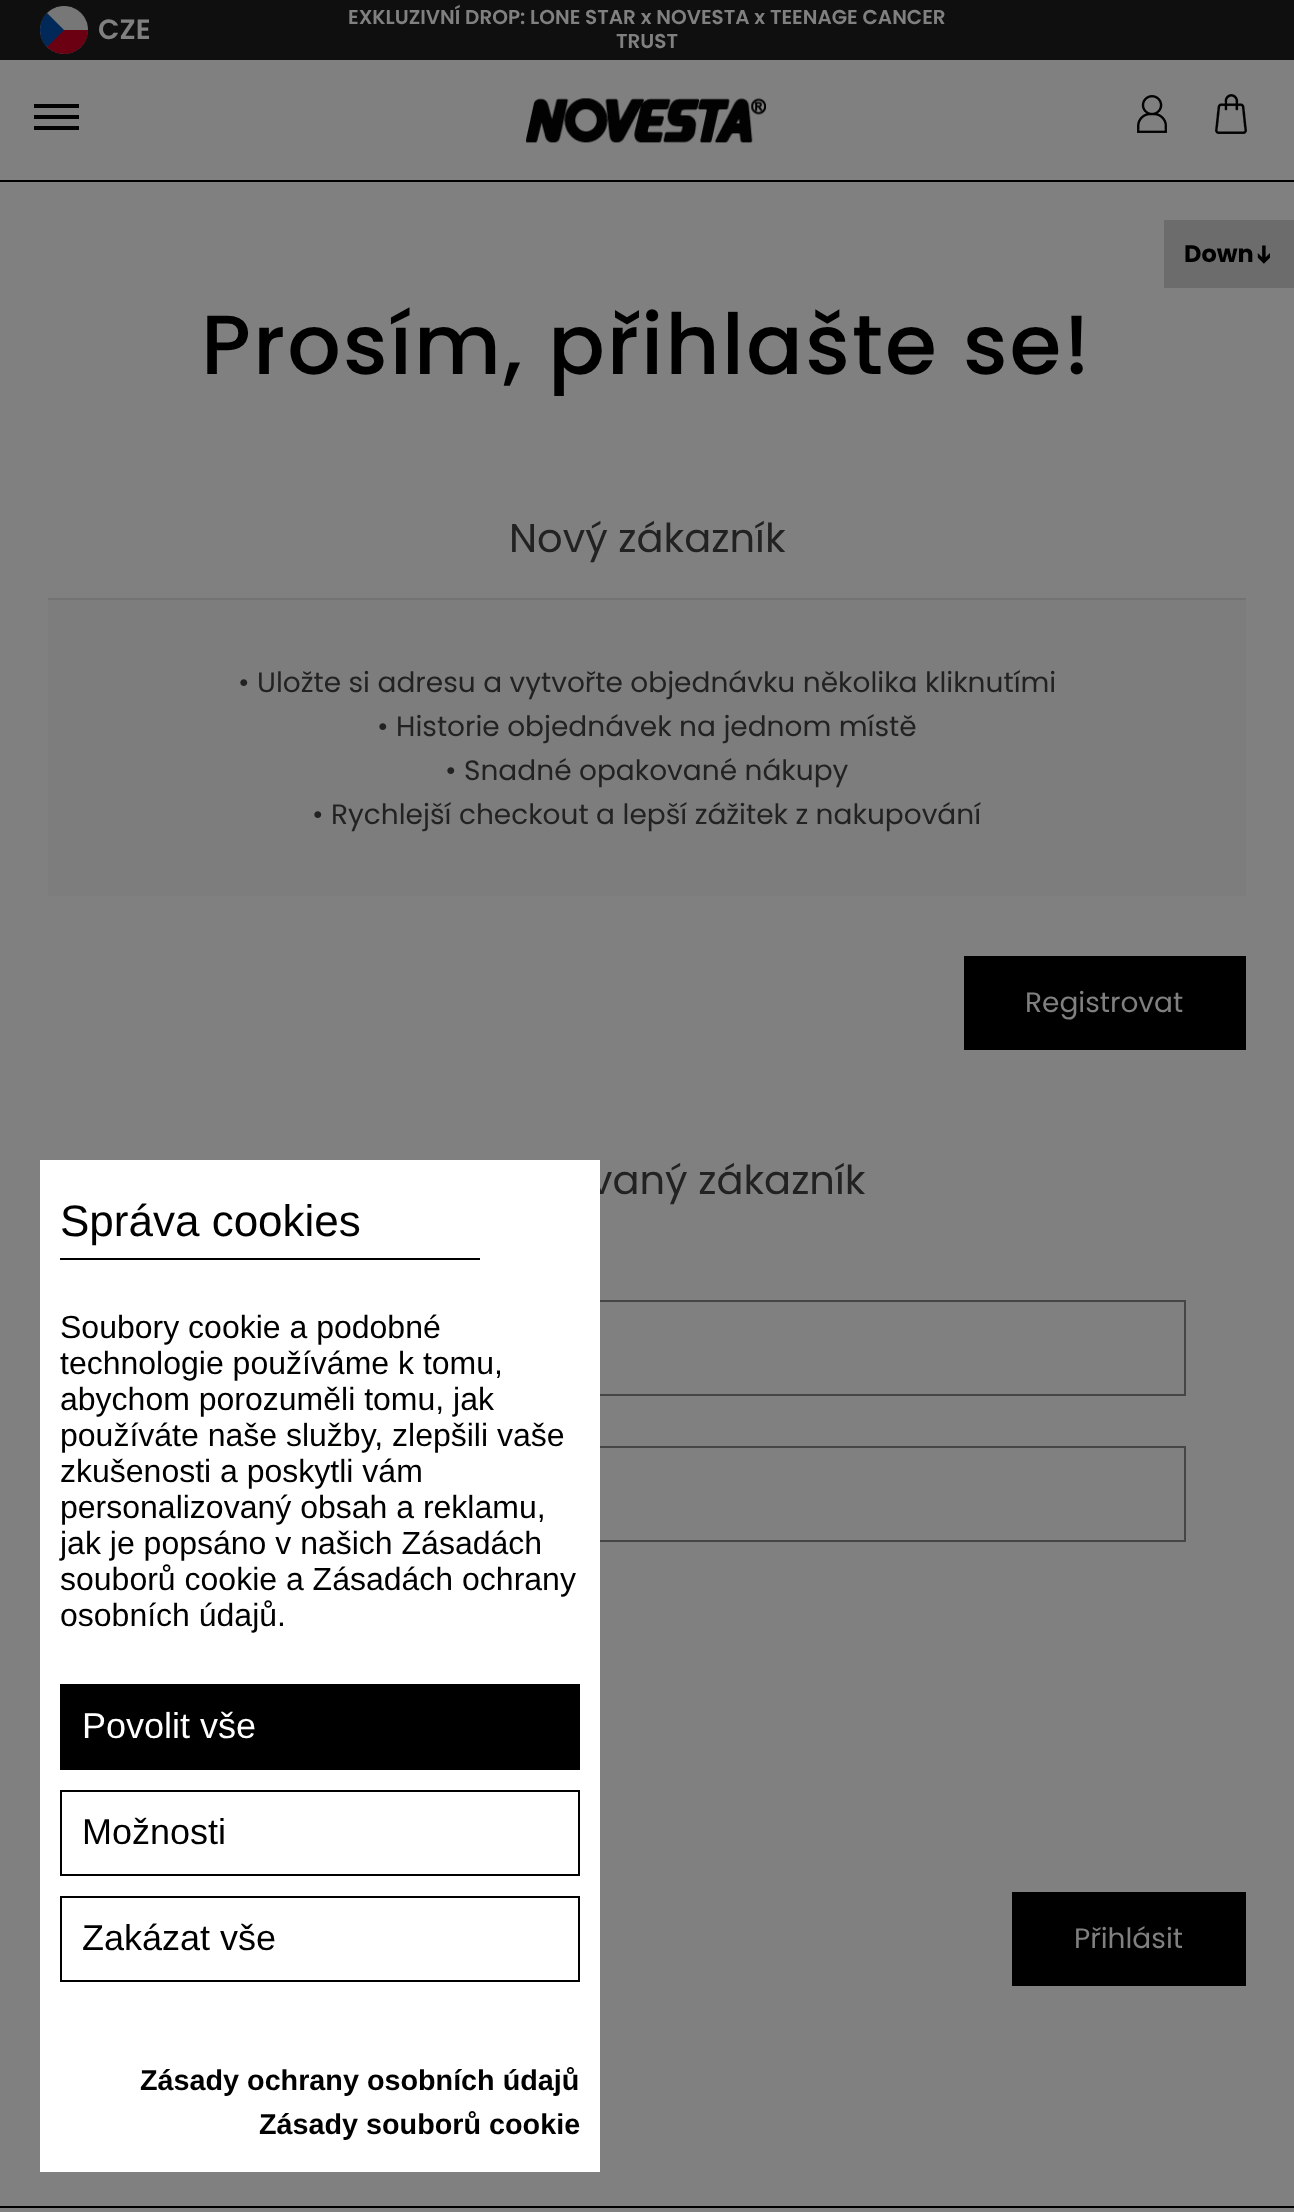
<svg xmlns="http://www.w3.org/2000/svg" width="1294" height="2212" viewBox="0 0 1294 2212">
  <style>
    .t1 { font: 600 28px Poppins; fill: #808080; }
    .t2 { font: 600 20px Poppins; fill: #808080; }
    .t3 { font: 500 84px Poppins; letter-spacing: 2px; fill: #000; }
    .t4 { font: 40px Poppins; fill: #222; }
    .t5 { font: 28px Poppins; fill: #222; }
    .t6 { font: 28px Poppins; fill: #808080; }
    .t7 { font: bold 24px Poppins; fill: #000; }
    .t8 { font: bold 24px DejaVu Sans; fill: #000; }
    .t9 { font: 44px Liberation Sans; fill: #000; }
    .t10 { font: 32px Liberation Sans; fill: #000; }
    .t11 { font: 36px Liberation Sans; fill: #fff; }
    .t12 { font: 36px Liberation Sans; fill: #000; }
    .t13 { font: bold 28.75px Liberation Sans; fill: #000; }
  </style>
  <rect width="100%" height="100%" fill="#808080"/>
  <rect x="0" y="180" width="1294" height="2" fill="#000"/>
  <rect x="0" y="0" width="1294" height="60" fill="#0f0f0f"/>
  <image x="40" y="6" width="48" height="48" href="images/1.png"/>
  <text x="98" y="39" class="t1">CZE</text>
  <text x="348" y="24" class="t2">EXKLUZIVNÍ DROP: LONE STAR x NOVESTA x TEENAGE CANCER</text>
  <text x="616" y="48" class="t2">TRUST</text>
  <rect x="34" y="104" width="45" height="4" fill="#020202"/>
  <rect x="34" y="115" width="45" height="4" fill="#020202"/>
  <rect x="34" y="126" width="45" height="4" fill="#020202"/>
  <image x="526" y="98" width="240" height="45" href="images/2.png"/>
  <image x="1137" y="95" width="30" height="38" href="images/3.png"/>
  <image x="1215" y="94" width="32" height="40" href="images/4.png"/>
  <text x="201" y="374" class="t3">Prosím, přihlašte se!</text>
  <text x="509" y="552" class="t4">Nový zákazník</text>
  <rect x="48" y="600" width="1198" height="296" fill="#7d7d7d"/>
  <rect x="48" y="598" width="1198" height="2" fill="#737373"/>
  <text x="238" y="692" class="t5">• Uložte si adresu a vytvořte objednávku několika kliknutími</text>
  <text x="377" y="736" class="t5">• Historie objednávek na jednom místě</text>
  <text x="445" y="780" class="t5">• Snadné opakované nákupy</text>
  <text x="312" y="824" class="t5">• Rychlejší checkout a lepší zážitek z nakupování</text>
  <rect x="964" y="956" width="282" height="94" fill="#000"/>
  <text x="1025" y="1012" class="t6">Registrovat</text>
  <text x="590" y="1194" class="t4">vaný zákazník</text>
  <rect x="109" y="1301" width="1076" height="94" fill="none" stroke="#464646" stroke-width="2"/>
  <rect x="109" y="1447" width="1076" height="94" fill="none" stroke="#464646" stroke-width="2"/>
  <rect x="1012" y="1892" width="234" height="94" fill="#000"/>
  <text x="1074" y="1948" class="t6">Přihlásit</text>
  <rect x="0" y="2206" width="1294" height="2" fill="#000"/>
  <rect x="1164" y="220" width="130" height="68" fill="#6c6c6c"/>
  <text x="1184" y="262" class="t7">Down</text>
  <text x="1256" y="244" transform="rotate(90 1256 244)" class="t8">➔</text>
  <rect x="40" y="1160" width="560" height="1012" fill="#fff"/>
  <rect x="60" y="1258" width="420" height="2" fill="#000"/>
  <text x="60" y="1236" class="t9">Správa cookies</text>
  <text x="60" y="1338" class="t10">Soubory cookie a podobné</text>
  <text x="60" y="1374" class="t10">technologie používáme k tomu,</text>
  <text x="60" y="1410" class="t10">abychom porozuměli tomu, jak</text>
  <text x="60" y="1446" class="t10">používáte naše služby, zlepšili vaše</text>
  <text x="60" y="1482" class="t10">zkušenosti a poskytli vám</text>
  <text x="60" y="1518" class="t10">personalizovaný obsah a reklamu,</text>
  <text x="60" y="1554" class="t10">jak je popsáno v našich Zásadách</text>
  <text x="60" y="1590" class="t10">souborů cookie a Zásadách ochrany</text>
  <text x="60" y="1626" class="t10">osobních údajů.</text>
  <rect x="60" y="1684" width="520" height="86" fill="#000"/>
  <text x="82" y="1738" class="t11">Povolit vše</text>
  <rect x="61" y="1791" width="518" height="84" fill="none" stroke="#000" stroke-width="2"/>
  <text x="82" y="1844" class="t12">Možnosti</text>
  <rect x="61" y="1897" width="518" height="84" fill="none" stroke="#000" stroke-width="2"/>
  <text x="82" y="1950" class="t12">Zakázat vše</text>
  <text x="140" y="2090" class="t13">Zásady ochrany osobních údajů</text>
  <text x="259" y="2134" class="t13">Zásady souborů cookie</text>
</svg>
